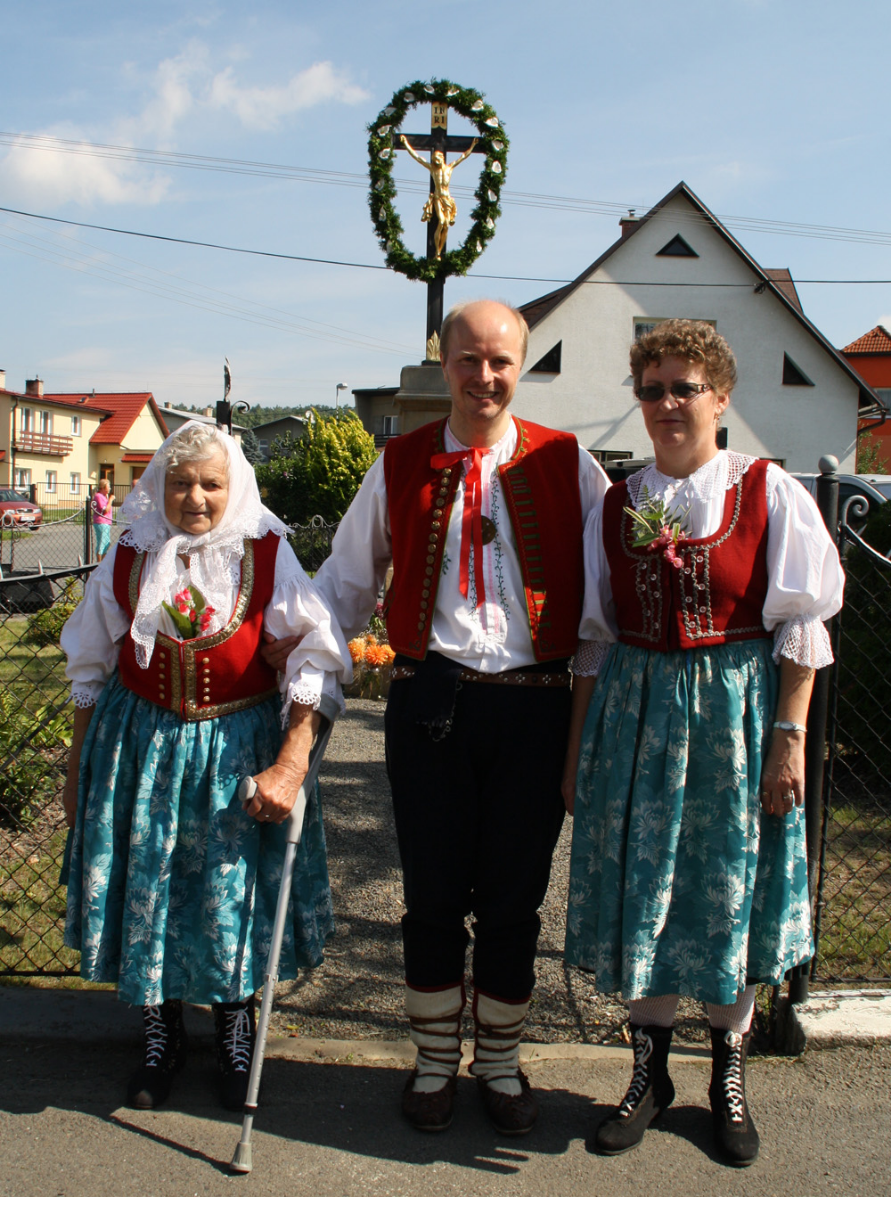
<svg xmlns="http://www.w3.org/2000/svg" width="891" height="1213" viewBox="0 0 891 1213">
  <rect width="100%" height="100%" fill="#fff"/>
  <image x="0" y="0" width="891" height="1197" href="images/1.png"/>
</svg>
